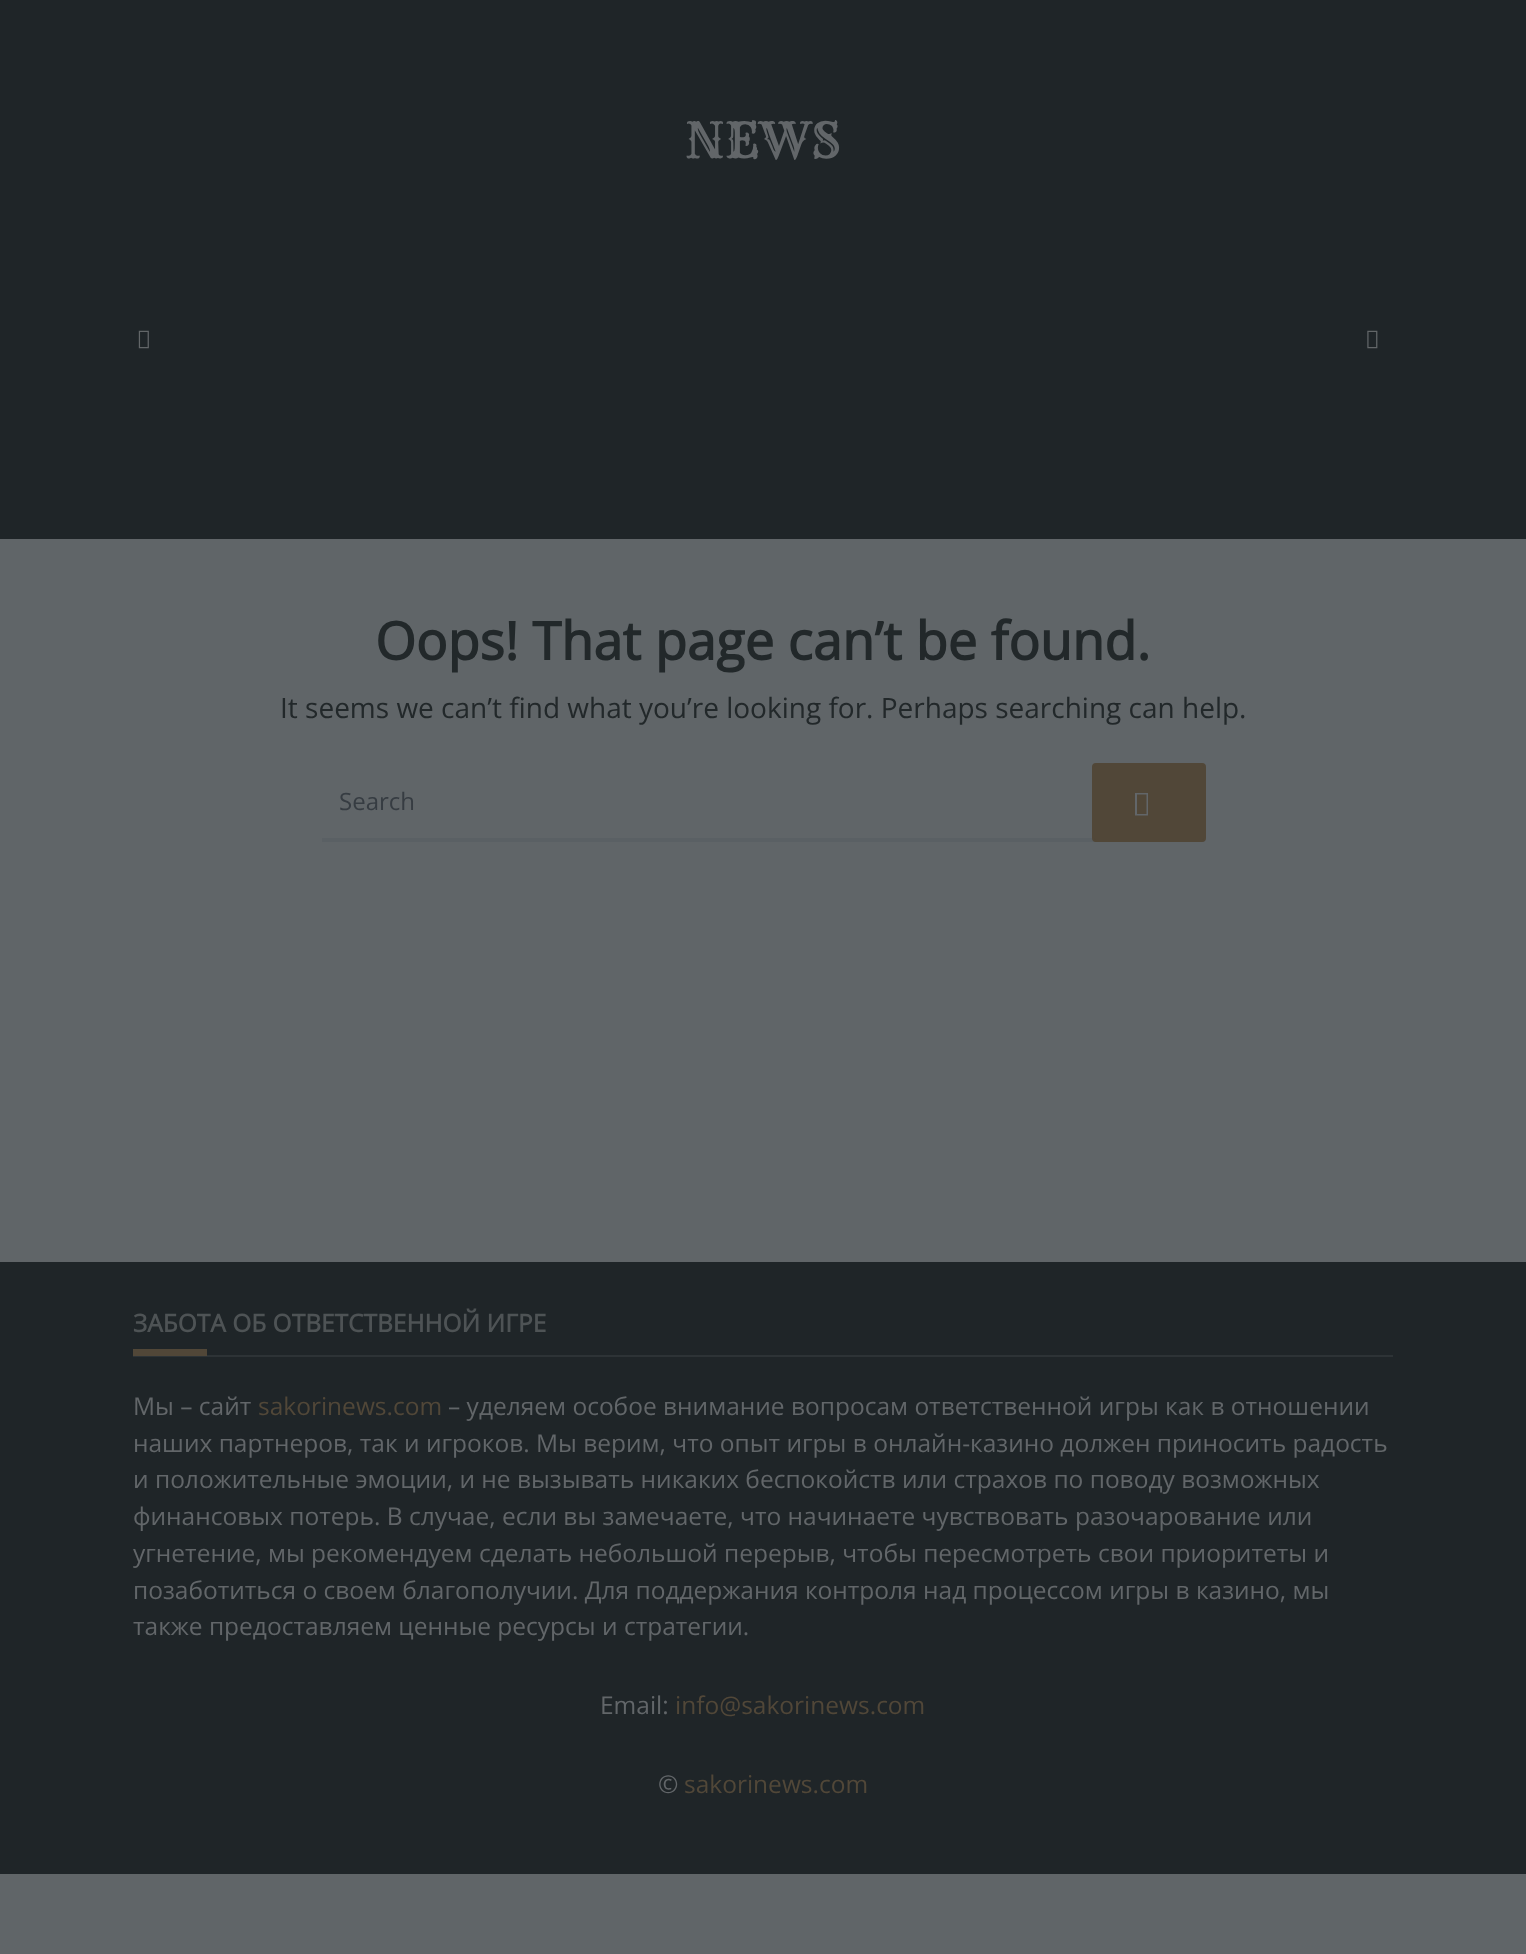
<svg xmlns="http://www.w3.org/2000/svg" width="1526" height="1954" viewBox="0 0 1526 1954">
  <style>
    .t1 { font: 49px Rye; fill: #626669; }
    .t2 { font: bold 52.5px Open Sans; fill: #22282a; }
    .t3 { font: 28px Open Sans; fill: #22282a; }
    .t4 { font: 24px Open Sans; fill: #363c42; }
    .t5 { font: bold 24.5px Open Sans; fill: #4e5355; }
    .t6 { font: 24.5px Open Sans; fill: #626669; }
    .t7 { font: 24.5px Open Sans; fill: #514738; }
  </style>
  <rect width="100%" height="100%" fill="#606568"/>
  <rect x="0" y="0" width="1526" height="539" fill="#1f2528"/>
  <text x="685" y="158" class="t1">NEWS</text>
  <image x="138" y="330" width="11" height="19" href="images/1.png"/>
  <image x="1367" y="330" width="11" height="19" href="images/2.png"/>
  <text x="375" y="660" class="t2">Oops! That page can’t be found.</text>
  <text x="280" y="718" class="t3">It seems we can’t find what you’re looking for. Perhaps searching can help.</text>
  <rect x="322" y="838" width="882" height="4" fill="#5a6064"/>
  <text x="339" y="810" class="t4">Search</text>
  <rect x="1093" y="764" width="112" height="77" rx="3" fill="#514738" stroke="#514738" stroke-width="2"/>
  <path d="M1135 815.5V793H1148V815.5ZM1137 814H1146.5V794.5H1137Z" fill="#626669"/>
  <rect x="0" y="1262" width="1526" height="612" fill="#1f2528"/>
  <rect x="133" y="1355" width="1260" height="2" fill="#2d3336"/>
  <text x="133" y="1332" class="t5">ЗАБОТА ОБ ОТВЕТСТВЕННОЙ ИГРЕ</text>
  <rect x="133" y="1349" width="74" height="7" fill="#514738"/>
  <text x="133" y="1415" class="t6">Мы – сайт</text>
  <text x="258" y="1415" class="t7">sakorinews.com</text>
  <text x="448" y="1415" class="t6">– уделяем особое внимание вопросам ответственной игры как в отношении</text>
  <text x="133" y="1452" class="t6">наших партнеров, так и игроков. Мы верим, что опыт игры в онлайн-казино должен приносить радость</text>
  <text x="133" y="1488" class="t6">и положительные эмоции, и не вызывать никаких беспокойств или страхов по поводу возможных</text>
  <text x="133" y="1525" class="t6">финансовых потерь. В случае, если вы замечаете, что начинаете чувствовать разочарование или</text>
  <text x="133" y="1562" class="t6">угнетение, мы рекомендуем сделать небольшой перерыв, чтобы пересмотреть свои приоритеты и</text>
  <text x="133" y="1599" class="t6">позаботиться о своем благополучии. Для поддержания контроля над процессом игры в казино, мы</text>
  <text x="133" y="1635" class="t6">также предоставляем ценные ресурсы и стратегии.</text>
  <text x="600" y="1714" class="t6">Email:</text>
  <text x="675" y="1714" class="t7">info@sakorinews.com</text>
  <text x="658" y="1793" class="t6">©</text>
  <text x="684" y="1793" class="t7">sakorinews.com</text>
</svg>
